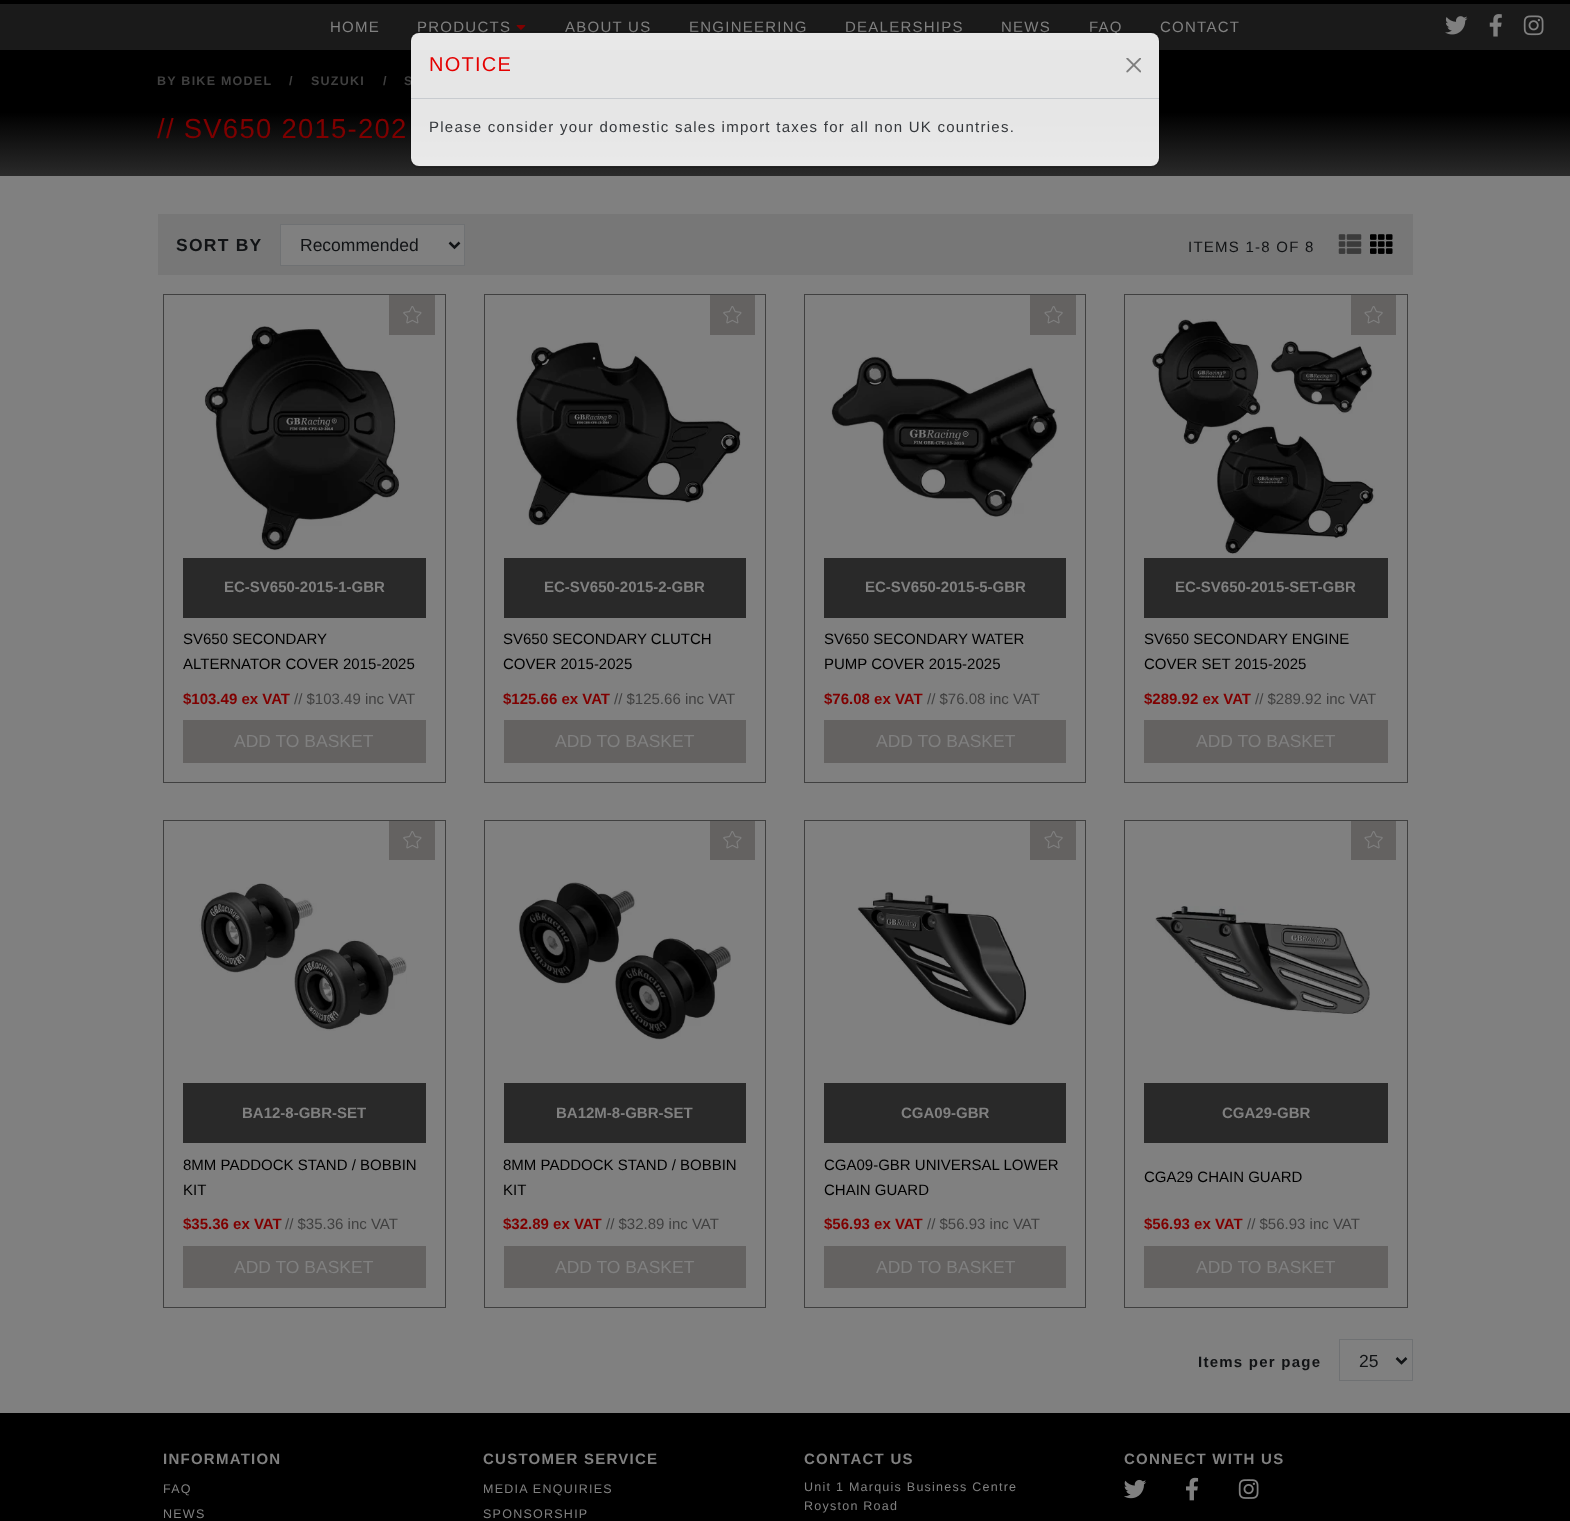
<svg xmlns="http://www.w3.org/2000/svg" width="1570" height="1521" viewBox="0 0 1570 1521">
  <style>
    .t1 { font: 15px Liberation Sans; letter-spacing: 1.25px; fill: #808080; }
    .t2 { font: bold 12.5px Liberation Sans; letter-spacing: 1.25px; fill: #404040; }
    .t3 { font: 27.5px Liberation Sans; letter-spacing: 1.25px; fill: #7f0000; }
    .t4 { font: bold 17.5px Liberation Sans; letter-spacing: 1.25px; fill: #111315; }
    .t5 { font: 17.5px Liberation Sans; fill: #111315; }
    .t6 { font: 15px Liberation Sans; letter-spacing: 1.25px; fill: #111315; }
    .t7 { font: bold 15px Liberation Sans; fill: #808080; }
    .t8 { font: 15px Liberation Sans; fill: #000; }
    .t9 { font: bold 15px Liberation Sans; fill: #7f0000; }
    .t10 { font: 15px Liberation Sans; fill: #404040; }
    .t11 { font: 17.5px Liberation Sans; fill: #808080; }
    .t12 { font: bold 15px Liberation Sans; letter-spacing: 1.25px; fill: #111315; }
    .t13 { font: bold 15px Liberation Sans; letter-spacing: 1.25px; fill: #808080; }
    .t14 { font: 12.5px Liberation Sans; letter-spacing: 1.25px; fill: #808080; }
    .t15 { font: 20px Liberation Sans; letter-spacing: 1.25px; fill: #e50000; }
    .t16 { font: 15px Liberation Sans; letter-spacing: 1.25px; fill: #35383c; }
  </style>
  <defs>
    <linearGradient id="g1" gradientUnits="userSpaceOnUse" x1="785" y1="112" x2="785" y2="176"><stop offset="0" stop-color="#000"/><stop offset="1" stop-color="#2a2a2a"/></linearGradient>
  </defs>
  <rect width="100%" height="100%" fill="#808080"/>
  <rect x="0" y="0" width="1570" height="4" fill="#000"/>
  <rect x="0" y="4" width="1570" height="46" fill="#1a1a1a"/>
  <text x="330" y="32" class="t1">HOME</text>
  <text x="417" y="32" class="t1">PRODUCTS</text>
  <image x="516" y="25" width="10" height="5" href="images/1.png"/>
  <text x="565" y="32" class="t1">ABOUT US</text>
  <text x="689" y="32" class="t1">ENGINEERING</text>
  <text x="845" y="32" class="t1">DEALERSHIPS</text>
  <text x="1001" y="32" class="t1">NEWS</text>
  <text x="1089" y="32" class="t1">FAQ</text>
  <text x="1160" y="32" class="t1">CONTACT</text>
  <image x="1445" y="16" width="23" height="19" href="images/2.png"/>
  <image x="1489" y="14" width="13" height="23" href="images/3.png"/>
  <image x="1523" y="15" width="21" height="21" href="images/4.png"/>
  <rect x="0" y="50" width="1570" height="63" fill="#000"/>
  <text x="157" y="85" class="t2">BY BIKE MODEL</text>
  <text x="289" y="85" class="t2">/</text>
  <text x="311" y="85" class="t2">SUZUKI</text>
  <text x="383" y="85" class="t2">/</text>
  <text x="404" y="85" class="t2">S</text>
  <rect x="0" y="113" width="1570" height="63" fill="url(#g1)"/>
  <text x="157" y="138" class="t3">// SV650 2015-202</text>
  <rect x="158" y="214" width="1255" height="61" fill="#777"/>
  <text x="176" y="251" class="t4">SORT BY</text>
  <rect x="280.5" y="224.5" width="184" height="41" fill="#808080" stroke="#6f7173"/>
  <path d="M449.5 242.5L454.5 247.5L459.5 242.5" fill="none" stroke="#111315" stroke-width="2.5"/>
  <text x="300" y="251" class="t5">Recommended</text>
  <text x="1188" y="252" class="t6">ITEMS 1-8 OF 8</text>
  <image x="1338" y="234" width="24" height="20" href="images/5.png"/>
  <image x="1370" y="234" width="23" height="20" href="images/6.png"/>
  <rect x="163.5" y="294.5" width="282" height="488" fill="none" stroke="#404040"/>
  <image x="204" y="326" width="196" height="225" href="images/8.png"/>
  <rect x="389" y="295" width="46" height="40" fill="#646261"/>
  <image x="403" y="306" width="19" height="18" href="images/7.png"/>
  <rect x="183" y="558" width="243" height="60" fill="#292929"/>
  <text x="224" y="592" class="t7">EC-SV650-2015-1-GBR</text>
  <text x="183" y="644" class="t8">SV650 SECONDARY</text>
  <text x="183" y="669" class="t8">ALTERNATOR COVER 2015-2025</text>
  <text x="183" y="704" class="t9">$103.49 ex VAT</text>
  <text x="294" y="704" class="t10">// $103.49 inc VAT</text>
  <rect x="183" y="720" width="243" height="43" fill="#646261"/>
  <text x="234" y="747" class="t11">ADD TO BASKET</text>
  <rect x="484.5" y="294.5" width="281" height="488" fill="none" stroke="#404040"/>
  <rect x="710" y="295" width="45" height="40" fill="#646261"/>
  <image x="723" y="306" width="19" height="18" href="images/7.png"/>
  <image x="515" y="341" width="226" height="185" href="images/9.png"/>
  <rect x="504" y="558" width="242" height="60" fill="#292929"/>
  <text x="544" y="592" class="t7">EC-SV650-2015-2-GBR</text>
  <text x="503" y="644" class="t8">SV650 SECONDARY CLUTCH</text>
  <text x="503" y="669" class="t8">COVER 2015-2025</text>
  <text x="503" y="704" class="t9">$125.66 ex VAT</text>
  <text x="614" y="704" class="t10">// $125.66 inc VAT</text>
  <rect x="504" y="720" width="242" height="43" fill="#646261"/>
  <text x="555" y="747" class="t11">ADD TO BASKET</text>
  <rect x="804.5" y="294.5" width="281" height="488" fill="none" stroke="#404040"/>
  <rect x="1030" y="295" width="46" height="40" fill="#646261"/>
  <image x="1044" y="306" width="19" height="18" href="images/10.png"/>
  <image x="830" y="356" width="228" height="161" href="images/11.png"/>
  <rect x="824" y="558" width="242" height="60" fill="#292929"/>
  <text x="865" y="592" class="t7">EC-SV650-2015-5-GBR</text>
  <text x="824" y="644" class="t8">SV650 SECONDARY WATER</text>
  <text x="824" y="669" class="t8">PUMP COVER 2015-2025</text>
  <text x="824" y="704" class="t9">$76.08 ex VAT</text>
  <text x="927" y="704" class="t10">// $76.08 inc VAT</text>
  <rect x="824" y="720" width="242" height="43" fill="#646261"/>
  <text x="876" y="747" class="t11">ADD TO BASKET</text>
  <rect x="1124.5" y="294.5" width="283" height="488" fill="none" stroke="#404040"/>
  <image x="1152" y="319" width="223" height="235" href="images/12.png"/>
  <rect x="1351" y="295" width="45" height="40" fill="#646261"/>
  <image x="1364" y="306" width="19" height="18" href="images/10.png"/>
  <rect x="1144" y="558" width="244" height="60" fill="#292929"/>
  <text x="1175" y="592" class="t7">EC-SV650-2015-SET-GBR</text>
  <text x="1144" y="644" class="t8">SV650 SECONDARY ENGINE</text>
  <text x="1144" y="669" class="t8">COVER SET 2015-2025</text>
  <text x="1144" y="704" class="t9">$289.92 ex VAT</text>
  <text x="1255" y="704" class="t10">// $289.92 inc VAT</text>
  <rect x="1144" y="720" width="244" height="43" fill="#646261"/>
  <text x="1196" y="747" class="t11">ADD TO BASKET</text>
  <rect x="163.5" y="820.5" width="282" height="487" fill="none" stroke="#404040"/>
  <rect x="389" y="821" width="46" height="39" fill="#646261"/>
  <image x="403" y="831" width="19" height="18" href="images/7.png"/>
  <image x="199" y="883" width="208" height="148" href="images/13.png"/>
  <rect x="183" y="1083" width="243" height="60" fill="#292929"/>
  <text x="242" y="1118" class="t7">BA12-8-GBR-SET</text>
  <text x="183" y="1170" class="t8">8MM PADDOCK STAND / BOBBIN</text>
  <text x="183" y="1195" class="t8">KIT</text>
  <text x="183" y="1229" class="t9">$35.36 ex VAT</text>
  <text x="285" y="1229" class="t10">// $35.36 inc VAT</text>
  <rect x="183" y="1246" width="243" height="42" fill="#646261"/>
  <text x="234" y="1273" class="t11">ADD TO BASKET</text>
  <rect x="484.5" y="820.5" width="281" height="487" fill="none" stroke="#404040"/>
  <rect x="710" y="821" width="45" height="39" fill="#646261"/>
  <image x="723" y="831" width="19" height="18" href="images/7.png"/>
  <image x="518" y="882" width="213" height="158" href="images/14.png"/>
  <rect x="504" y="1083" width="242" height="60" fill="#292929"/>
  <text x="556" y="1118" class="t7">BA12M-8-GBR-SET</text>
  <text x="503" y="1170" class="t8">8MM PADDOCK STAND / BOBBIN</text>
  <text x="503" y="1195" class="t8">KIT</text>
  <text x="503" y="1229" class="t9">$32.89 ex VAT</text>
  <text x="606" y="1229" class="t10">// $32.89 inc VAT</text>
  <rect x="504" y="1246" width="242" height="42" fill="#646261"/>
  <text x="555" y="1273" class="t11">ADD TO BASKET</text>
  <rect x="804.5" y="820.5" width="281" height="487" fill="none" stroke="#404040"/>
  <rect x="1030" y="821" width="46" height="39" fill="#646261"/>
  <image x="1044" y="831" width="19" height="18" href="images/10.png"/>
  <image x="857" y="892" width="170" height="134" href="images/15.png"/>
  <rect x="824" y="1083" width="242" height="60" fill="#292929"/>
  <text x="901" y="1118" class="t7">CGA09-GBR</text>
  <text x="824" y="1170" class="t8">CGA09-GBR UNIVERSAL LOWER</text>
  <text x="824" y="1195" class="t8">CHAIN GUARD</text>
  <text x="824" y="1229" class="t9">$56.93 ex VAT</text>
  <text x="927" y="1229" class="t10">// $56.93 inc VAT</text>
  <rect x="824" y="1246" width="242" height="42" fill="#646261"/>
  <text x="876" y="1273" class="t11">ADD TO BASKET</text>
  <rect x="1124.5" y="820.5" width="283" height="487" fill="none" stroke="#404040"/>
  <rect x="1351" y="821" width="45" height="39" fill="#646261"/>
  <image x="1364" y="831" width="19" height="18" href="images/10.png"/>
  <image x="1155" y="906" width="215" height="108" href="images/16.png"/>
  <rect x="1144" y="1083" width="244" height="60" fill="#292929"/>
  <text x="1222" y="1118" class="t7">CGA29-GBR</text>
  <text x="1144" y="1182" class="t8">CGA29 CHAIN GUARD</text>
  <text x="1144" y="1229" class="t9">$56.93 ex VAT</text>
  <text x="1247" y="1229" class="t10">// $56.93 inc VAT</text>
  <rect x="1144" y="1246" width="244" height="42" fill="#646261"/>
  <text x="1196" y="1273" class="t11">ADD TO BASKET</text>
  <text x="1198" y="1367" class="t12">Items per page</text>
  <rect x="1339.5" y="1339.5" width="73" height="41" fill="none" stroke="#6f7173"/>
  <path d="M1396.5 1358L1401.5 1363L1406.5 1358" fill="none" stroke="#111315" stroke-width="2.5"/>
  <text x="1359" y="1367" class="t5">25</text>
  <rect x="0" y="1413" width="1570" height="108" fill="#000"/>
  <text x="163" y="1464" class="t13">INFORMATION</text>
  <text x="163" y="1493" class="t14">FAQ</text>
  <text x="163" y="1518" class="t14">NEWS</text>
  <text x="483" y="1464" class="t13">CUSTOMER SERVICE</text>
  <text x="483" y="1493" class="t14">MEDIA ENQUIRIES</text>
  <text x="483" y="1518" class="t14">SPONSORSHIP</text>
  <text x="804" y="1464" class="t13">CONTACT US</text>
  <text x="804" y="1491" class="t14">Unit 1 Marquis Business Centre</text>
  <text x="804" y="1510" class="t14">Royston Road</text>
  <text x="1124" y="1464" class="t13">CONNECT WITH US</text>
  <image x="1124" y="1479" width="23" height="20" href="images/17.png"/>
  <image x="1186" y="1477" width="13" height="24" href="images/18.png"/>
  <image x="1238" y="1479" width="21" height="20" href="images/19.png"/>
  <rect x="411" y="33" width="748" height="133" rx="8" fill="#ffffffe6"/>
  <rect x="410.5" y="31.5" width="749" height="136" rx="8.5" fill="none" stroke="#00000029"/>
  <rect x="411" y="98" width="748" height="1" fill="#c8cbcf"/>
  <text x="429" y="71" class="t15">NOTICE</text>
  <image x="1126" y="58" width="15" height="15" href="images/20.png"/>
  <text x="429" y="132" class="t16">Please consider your domestic sales import taxes for all non UK countries.</text>
</svg>
